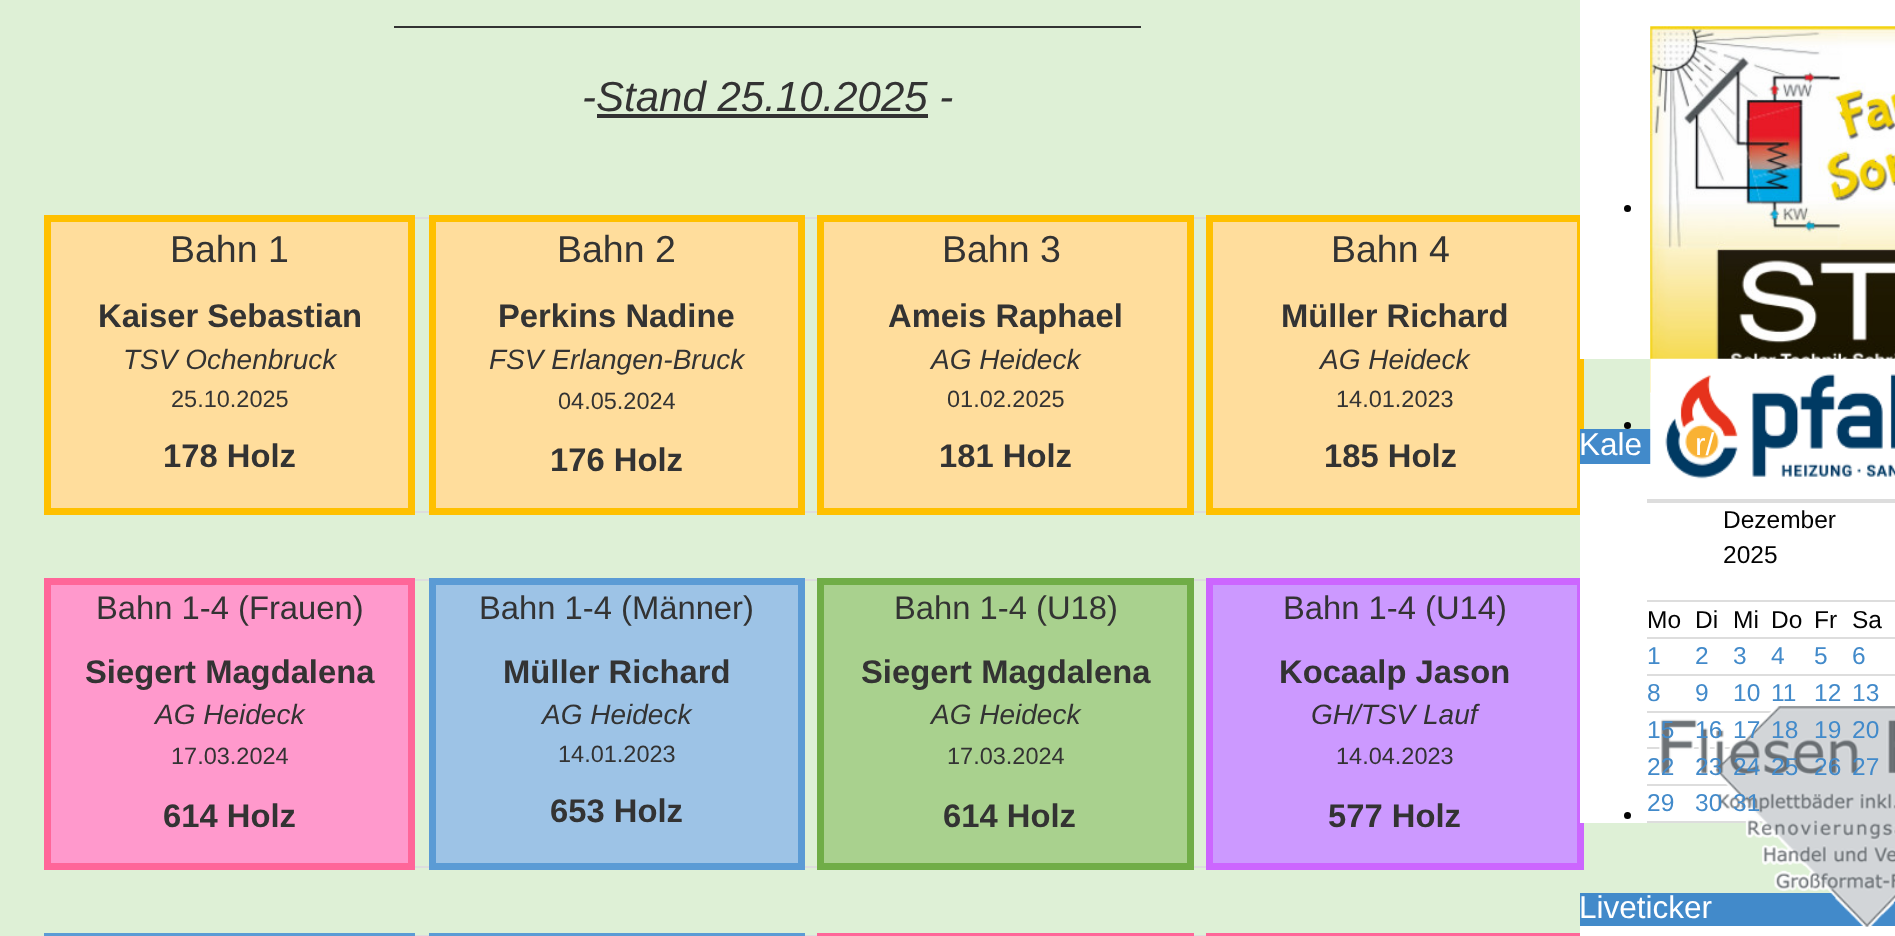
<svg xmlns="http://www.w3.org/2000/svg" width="1895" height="936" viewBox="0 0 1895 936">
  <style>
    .t1 { font: italic 42px Liberation Sans; fill: #333; }
    .t2 { font: 37.5px Liberation Sans; fill: #333; }
    .t3 { font: bold 32.75px Liberation Sans; fill: #333; }
    .t4 { font: italic 28px Liberation Sans; fill: #333; }
    .t5 { font: 23.5px Liberation Sans; fill: #333; }
    .t6 { font: 32.75px Liberation Sans; fill: #333; }
    .t7 { font: 31.5px Liberation Sans; fill: #fff; }
    .t8 { font: 24.5px Liberation Sans; fill: #030303; }
    .t9 { font: 24.5px Liberation Sans; fill: #428aca; }
  </style>
  <rect width="100%" height="100%" fill="#def0d6"/>
  <rect x="394" y="26" width="747" height="2" fill="#333"/>
  <text x="582" y="111" class="t1">-Stand 25.10.2025 -</text>
  <rect x="597" y="114" width="331" height="4" fill="#333"/>
  <rect x="411" y="217" width="21" height="2" fill="#ddd"/>
  <rect x="800" y="217" width="23" height="2" fill="#ddd"/>
  <rect x="1188" y="217" width="21" height="2" fill="#ddd"/>
  <rect x="51" y="222" width="357" height="286" fill="#ffdd9c"/>
  <rect x="44" y="215" width="371" height="7" fill="#ffc000"/>
  <rect x="411" y="511" width="21" height="2" fill="#ddd"/>
  <rect x="408" y="215" width="7" height="300" fill="#ffc000"/>
  <rect x="44" y="508" width="371" height="7" fill="#ffc000"/>
  <rect x="44" y="215" width="7" height="300" fill="#ffc000"/>
  <text x="170" y="262" class="t2">Bahn 1</text>
  <text x="98" y="327" class="t3">Kaiser Sebastian</text>
  <text x="123" y="369" class="t4">TSV Ochenbruck</text>
  <text x="171" y="407" class="t5">25.10.2025</text>
  <text x="163" y="467" class="t3">178 Holz</text>
  <rect x="436" y="222" width="362" height="286" fill="#ffdd9c"/>
  <rect x="429" y="215" width="376" height="7" fill="#ffc000"/>
  <rect x="800" y="511" width="23" height="2" fill="#ddd"/>
  <rect x="798" y="215" width="7" height="300" fill="#ffc000"/>
  <rect x="429" y="508" width="376" height="7" fill="#ffc000"/>
  <rect x="429" y="215" width="7" height="300" fill="#ffc000"/>
  <text x="557" y="262" class="t2">Bahn 2</text>
  <text x="498" y="327" class="t3">Perkins Nadine</text>
  <text x="489" y="369" class="t4">FSV Erlangen-Bruck</text>
  <text x="558" y="409" class="t5">04.05.2024</text>
  <text x="550" y="471" class="t3">176 Holz</text>
  <rect x="824" y="222" width="363" height="286" fill="#ffdd9c"/>
  <rect x="817" y="215" width="377" height="7" fill="#ffc000"/>
  <rect x="1188" y="511" width="21" height="2" fill="#ddd"/>
  <rect x="1187" y="215" width="7" height="300" fill="#ffc000"/>
  <rect x="817" y="508" width="377" height="7" fill="#ffc000"/>
  <rect x="817" y="215" width="7" height="300" fill="#ffc000"/>
  <text x="942" y="262" class="t2">Bahn 3</text>
  <text x="888" y="327" class="t3">Ameis Raphael</text>
  <text x="931" y="369" class="t4">AG Heideck</text>
  <text x="947" y="407" class="t5">01.02.2025</text>
  <text x="939" y="467" class="t3">181 Holz</text>
  <rect x="1213" y="222" width="364" height="286" fill="#ffdd9c"/>
  <rect x="1206" y="215" width="378" height="7" fill="#ffc000"/>
  <rect x="1577" y="215" width="7" height="300" fill="#ffc000"/>
  <rect x="1206" y="508" width="378" height="7" fill="#ffc000"/>
  <rect x="1206" y="215" width="7" height="300" fill="#ffc000"/>
  <text x="1331" y="262" class="t2">Bahn 4</text>
  <text x="1281" y="327" class="t3">Müller Richard</text>
  <text x="1320" y="369" class="t4">AG Heideck</text>
  <text x="1336" y="407" class="t5">14.01.2023</text>
  <text x="1324" y="467" class="t3">185 Holz</text>
  <rect x="411" y="579" width="21" height="2" fill="#ddd"/>
  <rect x="800" y="579" width="23" height="2" fill="#ddd"/>
  <rect x="1188" y="579" width="21" height="2" fill="#ddd"/>
  <rect x="51" y="585" width="357" height="278" fill="#f9c"/>
  <rect x="44" y="578" width="371" height="7" fill="#f69"/>
  <rect x="411" y="866" width="21" height="2" fill="#ddd"/>
  <rect x="408" y="578" width="7" height="292" fill="#f69"/>
  <rect x="44" y="863" width="371" height="7" fill="#f69"/>
  <rect x="44" y="578" width="7" height="292" fill="#f69"/>
  <text x="96" y="619" class="t6">Bahn 1-4 (Frauen)</text>
  <text x="85" y="683" class="t3">Siegert Magdalena</text>
  <text x="155" y="724" class="t4">AG Heideck</text>
  <text x="171" y="764" class="t5">17.03.2024</text>
  <text x="163" y="827" class="t3">614 Holz</text>
  <rect x="436" y="585" width="362" height="278" fill="#9dc3e6"/>
  <rect x="429" y="578" width="376" height="7" fill="#5b9bd5"/>
  <rect x="800" y="866" width="23" height="2" fill="#ddd"/>
  <rect x="798" y="578" width="7" height="292" fill="#5b9bd5"/>
  <rect x="429" y="863" width="376" height="7" fill="#5b9bd5"/>
  <rect x="429" y="578" width="7" height="292" fill="#5b9bd5"/>
  <text x="479" y="619" class="t6">Bahn 1-4 (Männer)</text>
  <text x="503" y="683" class="t3">Müller Richard</text>
  <text x="542" y="724" class="t4">AG Heideck</text>
  <text x="558" y="762" class="t5">14.01.2023</text>
  <text x="550" y="822" class="t3">653 Holz</text>
  <rect x="824" y="585" width="363" height="278" fill="#a9d18e"/>
  <rect x="817" y="578" width="377" height="7" fill="#70ad47"/>
  <rect x="1188" y="866" width="21" height="2" fill="#ddd"/>
  <rect x="1187" y="578" width="7" height="292" fill="#70ad47"/>
  <rect x="817" y="863" width="377" height="7" fill="#70ad47"/>
  <rect x="817" y="578" width="7" height="292" fill="#70ad47"/>
  <text x="894" y="619" class="t6">Bahn 1-4 (U18)</text>
  <text x="861" y="683" class="t3">Siegert Magdalena</text>
  <text x="931" y="724" class="t4">AG Heideck</text>
  <text x="947" y="764" class="t5">17.03.2024</text>
  <text x="943" y="827" class="t3">614 Holz</text>
  <rect x="1213" y="585" width="364" height="278" fill="#c9f"/>
  <rect x="1206" y="578" width="378" height="7" fill="#c6f"/>
  <rect x="1577" y="578" width="7" height="292" fill="#c6f"/>
  <rect x="1206" y="863" width="378" height="7" fill="#c6f"/>
  <rect x="1206" y="578" width="7" height="292" fill="#c6f"/>
  <text x="1283" y="619" class="t6">Bahn 1-4 (U14)</text>
  <text x="1279" y="683" class="t3">Kocaalp Jason</text>
  <text x="1311" y="724" class="t4">GH/TSV Lauf</text>
  <text x="1336" y="764" class="t5">14.04.2023</text>
  <text x="1328" y="827" class="t3">577 Holz</text>
  <rect x="411" y="935" width="21" height="1" fill="#ddd"/>
  <rect x="44" y="933" width="371" height="3" fill="#5b9bd5"/>
  <rect x="800" y="935" width="23" height="1" fill="#ddd"/>
  <rect x="429" y="933" width="376" height="3" fill="#5b9bd5"/>
  <rect x="1188" y="935" width="21" height="1" fill="#ddd"/>
  <rect x="817" y="933" width="377" height="3" fill="#f69"/>
  <rect x="1206" y="933" width="378" height="3" fill="#f69"/>
  <rect x="1580" y="0" width="315" height="359" fill="#fff"/>
  <circle cx="1627.5" cy="208.5" r="3.5" fill="#030303"/>
  <image x="1650" y="26" width="245" height="368" href="images/1.png"/>
  <circle cx="1627.5" cy="425.5" r="3.5" fill="#030303"/>
  <rect x="1580" y="464" width="315" height="359" fill="#fff"/>
  <rect x="1580" y="429" width="71" height="35" fill="#428aca"/>
  <image x="1650" y="358" width="245" height="121" href="images/2.png"/>
  <circle cx="1627.5" cy="815.5" r="3.5" fill="#030303"/>
  <rect x="1647" y="711" width="124" height="2" fill="#ddd"/>
  <rect x="1647" y="747" width="87" height="2" fill="#ddd"/>
  <rect x="1647" y="784" width="87" height="2" fill="#ddd"/>
  <rect x="1647" y="821" width="117" height="2" fill="#ddd"/>
  <rect x="1580" y="926" width="315" height="10" fill="#fff"/>
  <rect x="1580" y="893" width="315" height="33" fill="#428aca"/>
  <image x="1659" y="706" width="236" height="221" href="images/3.png"/>
  <text x="1579" y="455" class="t7">Kale</text>
  <text x="1695" y="455" class="t7">r/</text>
  <rect x="1647" y="499" width="248" height="4" fill="#ddd"/>
  <text x="1723" y="528" class="t8">Dezember</text>
  <text x="1723" y="563" class="t8">2025</text>
  <text x="1647" y="628" class="t8">Mo</text>
  <text x="1695" y="628" class="t8">Di</text>
  <text x="1733" y="628" class="t8">Mi</text>
  <text x="1771" y="628" class="t8">Do</text>
  <text x="1814" y="628" class="t8">Fr</text>
  <rect x="1647" y="600" width="248" height="2" fill="#ddd"/>
  <text x="1852" y="628" class="t8">Sa</text>
  <text x="1647" y="664" class="t9">1</text>
  <text x="1695" y="664" class="t9">2</text>
  <text x="1733" y="664" class="t9">3</text>
  <text x="1771" y="664" class="t9">4</text>
  <text x="1814" y="664" class="t9">5</text>
  <rect x="1647" y="637" width="248" height="2" fill="#ddd"/>
  <text x="1852" y="664" class="t9">6</text>
  <text x="1647" y="701" class="t9">8</text>
  <text x="1695" y="701" class="t9">9</text>
  <text x="1733" y="701" class="t9">10</text>
  <text x="1771" y="701" class="t9">11</text>
  <text x="1814" y="701" class="t9">12</text>
  <rect x="1647" y="674" width="248" height="2" fill="#ddd"/>
  <text x="1852" y="701" class="t9">13</text>
  <text x="1647" y="738" class="t9">15</text>
  <text x="1695" y="738" class="t9">16</text>
  <text x="1733" y="738" class="t9">17</text>
  <text x="1771" y="738" class="t9">18</text>
  <text x="1814" y="738" class="t9">19</text>
  <text x="1852" y="738" class="t9">20</text>
  <text x="1647" y="775" class="t9">22</text>
  <text x="1695" y="775" class="t9">23</text>
  <text x="1733" y="775" class="t9">24</text>
  <text x="1771" y="775" class="t9">25</text>
  <text x="1814" y="775" class="t9">26</text>
  <text x="1852" y="775" class="t9">27</text>
  <text x="1647" y="811" class="t9">29</text>
  <text x="1695" y="811" class="t9">30</text>
  <text x="1733" y="811" class="t9">31</text>
  <text x="1579" y="918" class="t7">Liveticker</text>
</svg>
